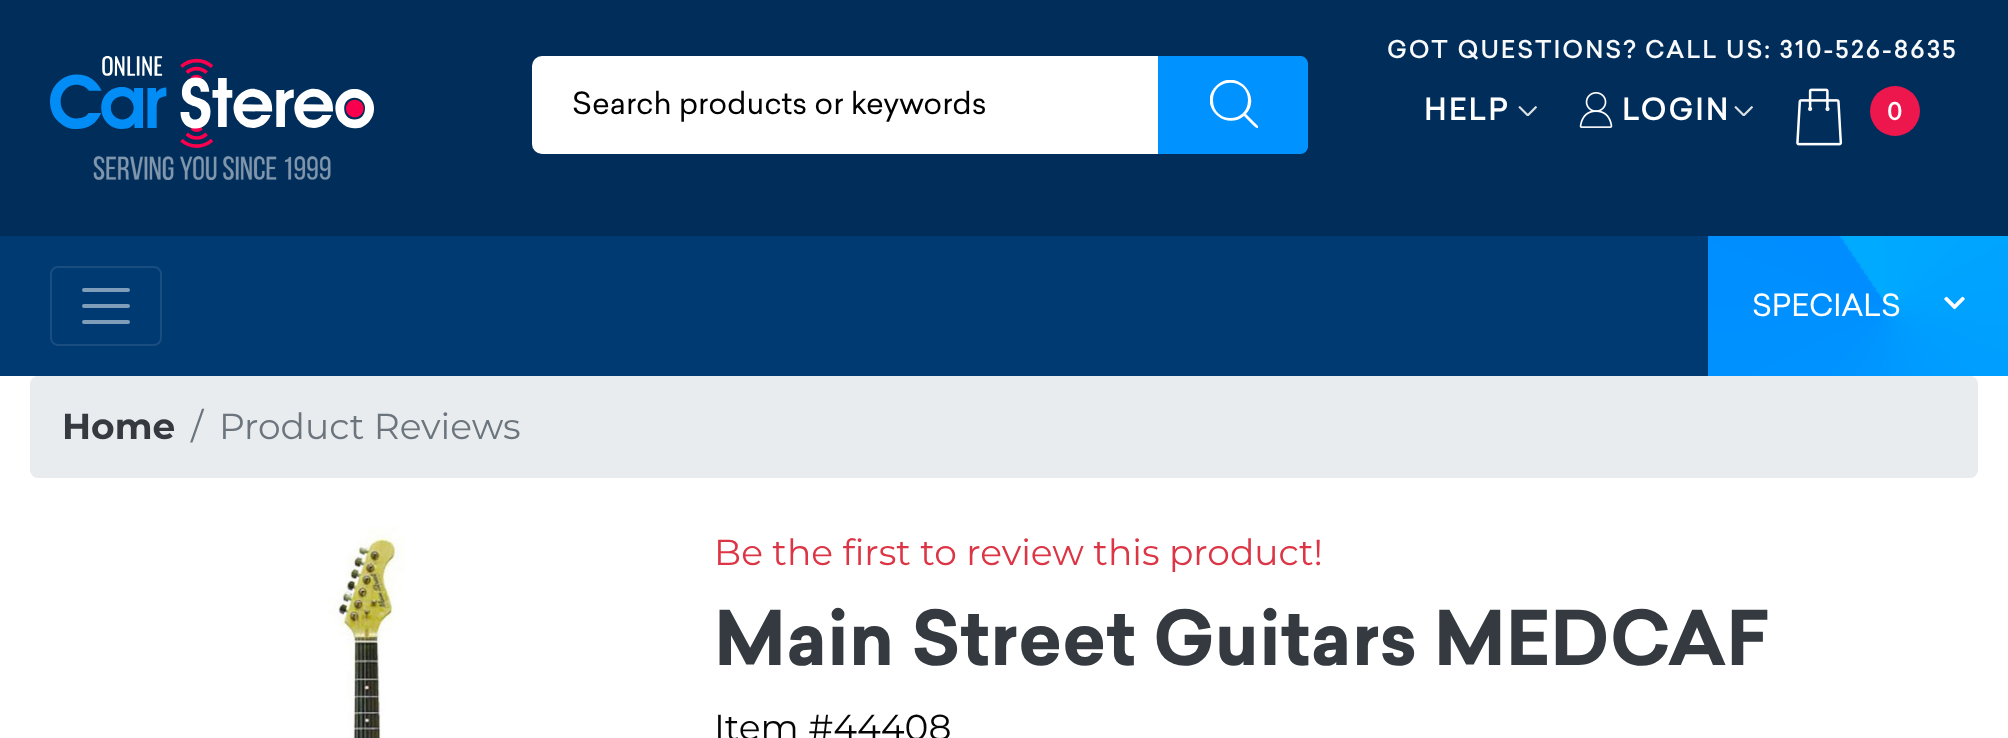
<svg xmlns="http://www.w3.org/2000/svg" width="2008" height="738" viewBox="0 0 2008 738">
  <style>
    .t1 { font: 30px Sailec; fill: #000; }
    .t2 { font: 500 24px Sailec; letter-spacing: 2px; fill: #f8f9fa; }
    .t3 { font: 500 30px Sailec; letter-spacing: 2px; fill: #fff; }
    .t4 { font: 500 24px Sailec; letter-spacing: 2px; fill: #fff; }
    .t5 { font: 30px Sailec; fill: #fff; }
    .t6 { font: bold 36px Montserrat; fill: #343a40; }
    .t7 { font: 36px Montserrat; fill: #6c757d; }
    .t8 { font: 36px Montserrat; fill: #dc3545; }
    .t9 { font: bold 74px Sailec; fill: #343a40; }
    .t10 { font: 36px Montserrat; fill: #060606; }
  </style>
  <defs>
    <clipPath id="clip1"><rect x="1210" y="80" width="48" height="48"/></clipPath>
  </defs>
  <rect width="100%" height="100%" fill="#002d59"/>
  <image x="50" y="56" width="324" height="124" href="images/1.png"/>
  <rect x="532" y="56" width="776" height="98" rx="10" fill="#fff"/>
  <text x="572" y="114" class="t1">Search products or keywords</text>
  <path d="M1158 56H1300C1304.5 56 1308 59.5 1308 64V146C1308 150.5 1304.5 154 1300 154H1158Z" fill="#0092ff"/>
  <g clip-path="url(#clip1)">
    <path d="M1258 126L1246 114C1263 95 1235 67 1216 86C1197 105 1225 132 1244 116L1254 126C1258 130 1259 127 1258 126ZM1213 100C1213 77 1248 77 1248 100C1248 124 1213 124 1213 100Z" fill="#fff"/>
  </g>
  <text x="1387" y="58" class="t2">GOT QUESTIONS? CALL US: 310-526-8635</text>
  <image x="1518" y="106" width="19" height="10" href="images/2.png"/>
  <text x="1424" y="120" class="t3">HELP</text>
  <image x="1579" y="92" width="34" height="36" href="images/3.png"/>
  <image x="1734" y="106" width="19" height="10" href="images/2.png"/>
  <text x="1622" y="120" class="t3">LOGIN</text>
  <image x="1796" y="88" width="47" height="58" href="images/4.png"/>
  <circle cx="1895" cy="111" r="25" fill="#ed174e"/>
  <text x="1887" y="120" class="t4">0</text>
  <rect x="0" y="236" width="1708" height="140" fill="#003a73"/>
  <rect x="51" y="267" width="110" height="78" rx="7" fill="none" stroke="#1a4e81" stroke-width="2"/>
  <path d="M84 290H128M84 306H128M84 322H128" fill="none" stroke="#809db9" stroke-width="4" stroke-linecap="round"/>
  <image x="1708" y="236" width="300" height="140" href="images/5.png"/>
  <text x="1752" y="316" class="t5">SPECIALS</text>
  <image x="1944" y="296" width="21" height="14" href="images/6.png"/>
  <rect x="0" y="376" width="2008" height="362" fill="#fff"/>
  <rect x="30" y="376" width="1948" height="102" rx="8" fill="#e9ecef"/>
  <text x="62" y="439" class="t6">Home</text>
  <text x="191" y="439" class="t7">/</text>
  <text x="219" y="439" class="t7">Product Reviews</text>
  <image x="327" y="526" width="77" height="212" href="images/7.png"/>
  <text x="714" y="565" class="t8">Be the first to review this product!</text>
  <text x="714" y="665" class="t9">Main Street Guitars MEDCAF</text>
  <text x="714" y="740" class="t10">Item #44408</text>
</svg>
